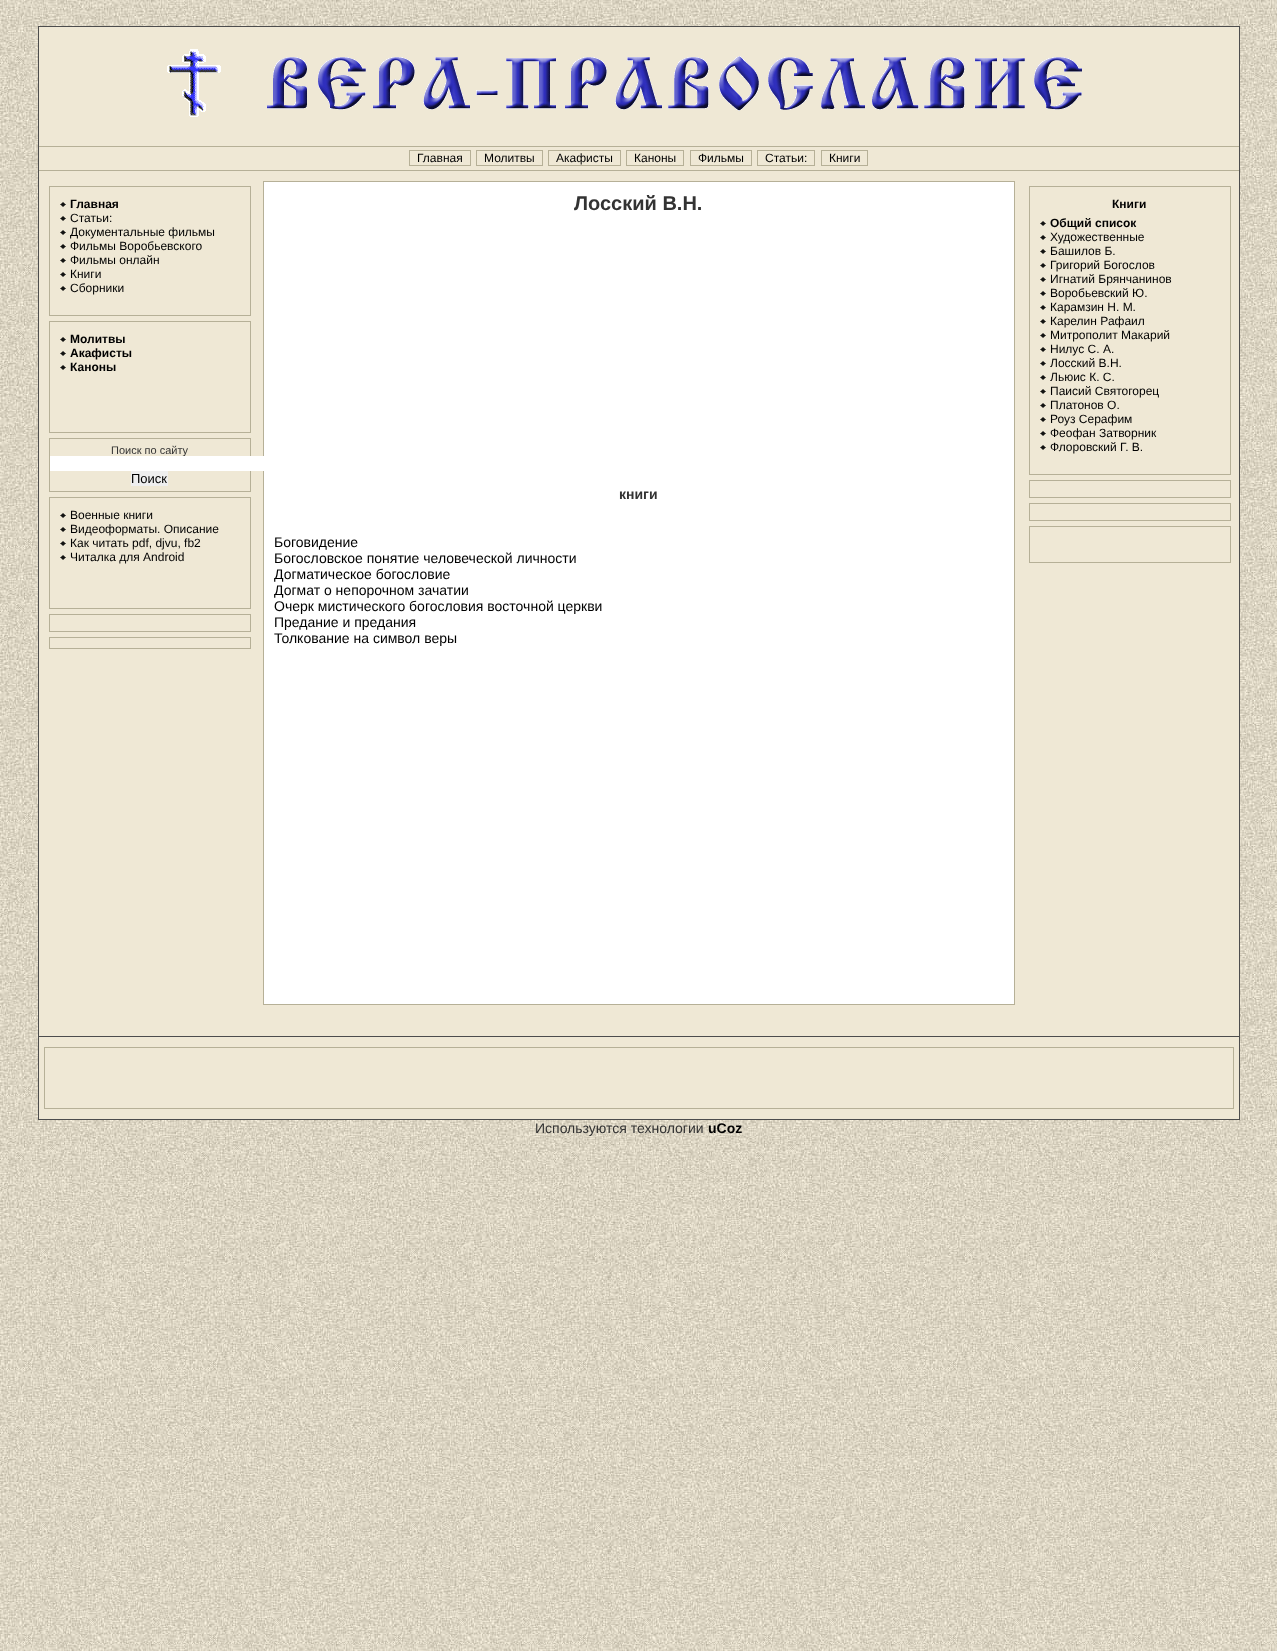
<svg xmlns="http://www.w3.org/2000/svg" width="1277" height="1651" viewBox="0 0 1277 1651">
  <style>
    .t1 { font: 12px Liberation Sans; fill: #000; }
    .t2 { font: bold 12px Liberation Sans; fill: #000; }
    .t3 { font: 11px Liberation Sans; fill: #333; }
    .t4 { font: 13px Liberation Sans; fill: #000; }
    .t5 { font: bold 20px Liberation Sans; fill: #333; }
    .t6 { font: bold 14px Liberation Sans; fill: #333; }
    .t7 { font: 14px Liberation Sans; fill: #000; }
    .t8 { font: 14px Liberation Sans; fill: #333; }
    .t9 { font: bold 14px Liberation Sans; fill: #000; }
  </style>
  <rect width="100%" height="100%" fill="#fff"/>
  <image x="0" y="0" width="1277" height="1651" href="images/1.png"/>
  <rect x="38.5" y="26.5" width="1201" height="1093" fill="#efe8d5" stroke="#4d4d4d"/>
  <image x="167" y="49" width="915" height="68" href="images/2.png"/>
  <rect x="39" y="146" width="1200" height="1" fill="#b6b097"/>
  <rect x="39" y="170" width="1200" height="1" fill="#b6b097"/>
  <rect x="409.5" y="150.5" width="61" height="15" fill="none" stroke="#b6b097"/>
  <text x="417" y="162" class="t1">Главная</text>
  <rect x="476.5" y="150.5" width="66" height="15" fill="none" stroke="#b6b097"/>
  <text x="484" y="162" class="t1">Молитвы</text>
  <rect x="548.5" y="150.5" width="72" height="15" fill="none" stroke="#b6b097"/>
  <text x="556" y="162" class="t1">Акафисты</text>
  <rect x="626.5" y="150.5" width="57" height="15" fill="none" stroke="#b6b097"/>
  <text x="634" y="162" class="t1">Каноны</text>
  <rect x="690.5" y="150.5" width="61" height="15" fill="none" stroke="#b6b097"/>
  <text x="698" y="162" class="t1">Фильмы</text>
  <rect x="757.5" y="150.5" width="57" height="15" fill="none" stroke="#b6b097"/>
  <text x="765" y="162" class="t1">Статьи:</text>
  <rect x="821.5" y="150.5" width="46" height="15" fill="none" stroke="#b6b097"/>
  <text x="829" y="162" class="t1">Книги</text>
  <rect x="49.5" y="186.5" width="201" height="129" fill="none" stroke="#b6b097"/>
  <image x="60" y="202" width="6" height="5" href="images/3.png"/>
  <text x="70" y="208" class="t2">Главная</text>
  <image x="60" y="216" width="6" height="5" href="images/3.png"/>
  <text x="70" y="222" class="t1">Статьи:</text>
  <image x="60" y="230" width="6" height="5" href="images/3.png"/>
  <text x="70" y="236" class="t1">Документальные фильмы</text>
  <image x="60" y="244" width="6" height="5" href="images/3.png"/>
  <text x="70" y="250" class="t1">Фильмы Воробьевского</text>
  <image x="60" y="258" width="6" height="5" href="images/3.png"/>
  <text x="70" y="264" class="t1">Фильмы онлайн</text>
  <image x="60" y="272" width="6" height="5" href="images/3.png"/>
  <text x="70" y="278" class="t1">Книги</text>
  <image x="60" y="286" width="6" height="5" href="images/3.png"/>
  <text x="70" y="292" class="t1">Сборники</text>
  <rect x="49.5" y="321.5" width="201" height="111" fill="none" stroke="#b6b097"/>
  <image x="60" y="337" width="6" height="5" href="images/3.png"/>
  <text x="70" y="343" class="t2">Молитвы</text>
  <image x="60" y="351" width="6" height="5" href="images/3.png"/>
  <text x="70" y="357" class="t2">Акафисты</text>
  <image x="60" y="365" width="6" height="5" href="images/3.png"/>
  <text x="70" y="371" class="t2">Каноны</text>
  <rect x="49.5" y="438.5" width="201" height="53" fill="none" stroke="#b6b097"/>
  <text x="111" y="454" class="t3">Поиск по сайту</text>
  <rect x="263.5" y="181.5" width="751" height="823" fill="#fff" stroke="#b6b097"/>
  <rect x="50" y="456" width="214" height="15" fill="#fff"/>
  <rect x="131" y="471" width="37" height="15" fill="#efefef"/>
  <text x="131" y="483" class="t4">Поиск</text>
  <rect x="49.5" y="497.5" width="201" height="111" fill="none" stroke="#b6b097"/>
  <image x="60" y="513" width="6" height="5" href="images/3.png"/>
  <text x="70" y="519" class="t1">Военные книги</text>
  <image x="60" y="527" width="6" height="5" href="images/3.png"/>
  <text x="70" y="533" class="t1">Видеоформаты. Описание</text>
  <image x="60" y="541" width="6" height="5" href="images/3.png"/>
  <text x="70" y="547" class="t1">Как читать pdf, djvu, fb2</text>
  <image x="60" y="555" width="6" height="5" href="images/3.png"/>
  <text x="70" y="561" class="t1">Читалка для Android</text>
  <rect x="49.5" y="614.5" width="201" height="17" fill="none" stroke="#b6b097"/>
  <rect x="49.5" y="637.5" width="201" height="11" fill="none" stroke="#b6b097"/>
  <text x="574" y="210" class="t5">Лосский В.Н.</text>
  <text x="619" y="499" class="t6">книги</text>
  <text x="274" y="547" class="t7">Боговидение</text>
  <text x="274" y="563" class="t7">Богословское понятие человеческой личности</text>
  <text x="274" y="579" class="t7">Догматическое богословие</text>
  <text x="274" y="595" class="t7">Догмат о непорочном зачатии</text>
  <text x="274" y="611" class="t7">Очерк мистического богословия восточной церкви</text>
  <text x="274" y="627" class="t7">Предание и предания</text>
  <text x="274" y="643" class="t7">Толкование на символ веры</text>
  <rect x="1029.5" y="186.5" width="201" height="288" fill="none" stroke="#b6b097"/>
  <text x="1112" y="208" class="t2">Книги</text>
  <image x="1040" y="221" width="6" height="5" href="images/3.png"/>
  <text x="1050" y="227" class="t2">Общий список</text>
  <image x="1040" y="235" width="6" height="5" href="images/3.png"/>
  <text x="1050" y="241" class="t1">Художественные</text>
  <image x="1040" y="249" width="6" height="5" href="images/3.png"/>
  <text x="1050" y="255" class="t1">Башилов Б.</text>
  <image x="1040" y="263" width="6" height="5" href="images/3.png"/>
  <text x="1050" y="269" class="t1">Григорий Богослов</text>
  <image x="1040" y="277" width="6" height="5" href="images/3.png"/>
  <text x="1050" y="283" class="t1">Игнатий Брянчанинов</text>
  <image x="1040" y="291" width="6" height="5" href="images/3.png"/>
  <text x="1050" y="297" class="t1">Воробьевский Ю.</text>
  <image x="1040" y="305" width="6" height="5" href="images/3.png"/>
  <text x="1050" y="311" class="t1">Карамзин Н. М.</text>
  <image x="1040" y="319" width="6" height="5" href="images/3.png"/>
  <text x="1050" y="325" class="t1">Карелин Рафаил</text>
  <image x="1040" y="333" width="6" height="5" href="images/3.png"/>
  <text x="1050" y="339" class="t1">Митрополит Макарий</text>
  <image x="1040" y="347" width="6" height="5" href="images/3.png"/>
  <text x="1050" y="353" class="t1">Нилус С. А.</text>
  <image x="1040" y="361" width="6" height="5" href="images/3.png"/>
  <text x="1050" y="367" class="t1">Лосский В.Н.</text>
  <image x="1040" y="375" width="6" height="5" href="images/3.png"/>
  <text x="1050" y="381" class="t1">Льюис К. С.</text>
  <image x="1040" y="389" width="6" height="5" href="images/3.png"/>
  <text x="1050" y="395" class="t1">Паисий Святогорец</text>
  <image x="1040" y="403" width="6" height="5" href="images/3.png"/>
  <text x="1050" y="409" class="t1">Платонов О.</text>
  <image x="1040" y="417" width="6" height="5" href="images/3.png"/>
  <text x="1050" y="423" class="t1">Роуз Серафим</text>
  <image x="1040" y="431" width="6" height="5" href="images/3.png"/>
  <text x="1050" y="437" class="t1">Феофан Затворник</text>
  <image x="1040" y="445" width="6" height="5" href="images/3.png"/>
  <text x="1050" y="451" class="t1">Флоровский Г. В.</text>
  <rect x="1029.5" y="480.5" width="201" height="17" fill="none" stroke="#b6b097"/>
  <rect x="1029.5" y="503.5" width="201" height="17" fill="none" stroke="#b6b097"/>
  <rect x="1029.5" y="526.5" width="201" height="36" fill="none" stroke="#b6b097"/>
  <rect x="39" y="1036" width="1200" height="1" fill="#4d4d4d"/>
  <rect x="44.5" y="1047.5" width="1189" height="61" fill="none" stroke="#b6b097"/>
  <text x="535" y="1133" class="t8">Используются технологии</text>
  <text x="708" y="1133" class="t9">uCoz</text>
</svg>
